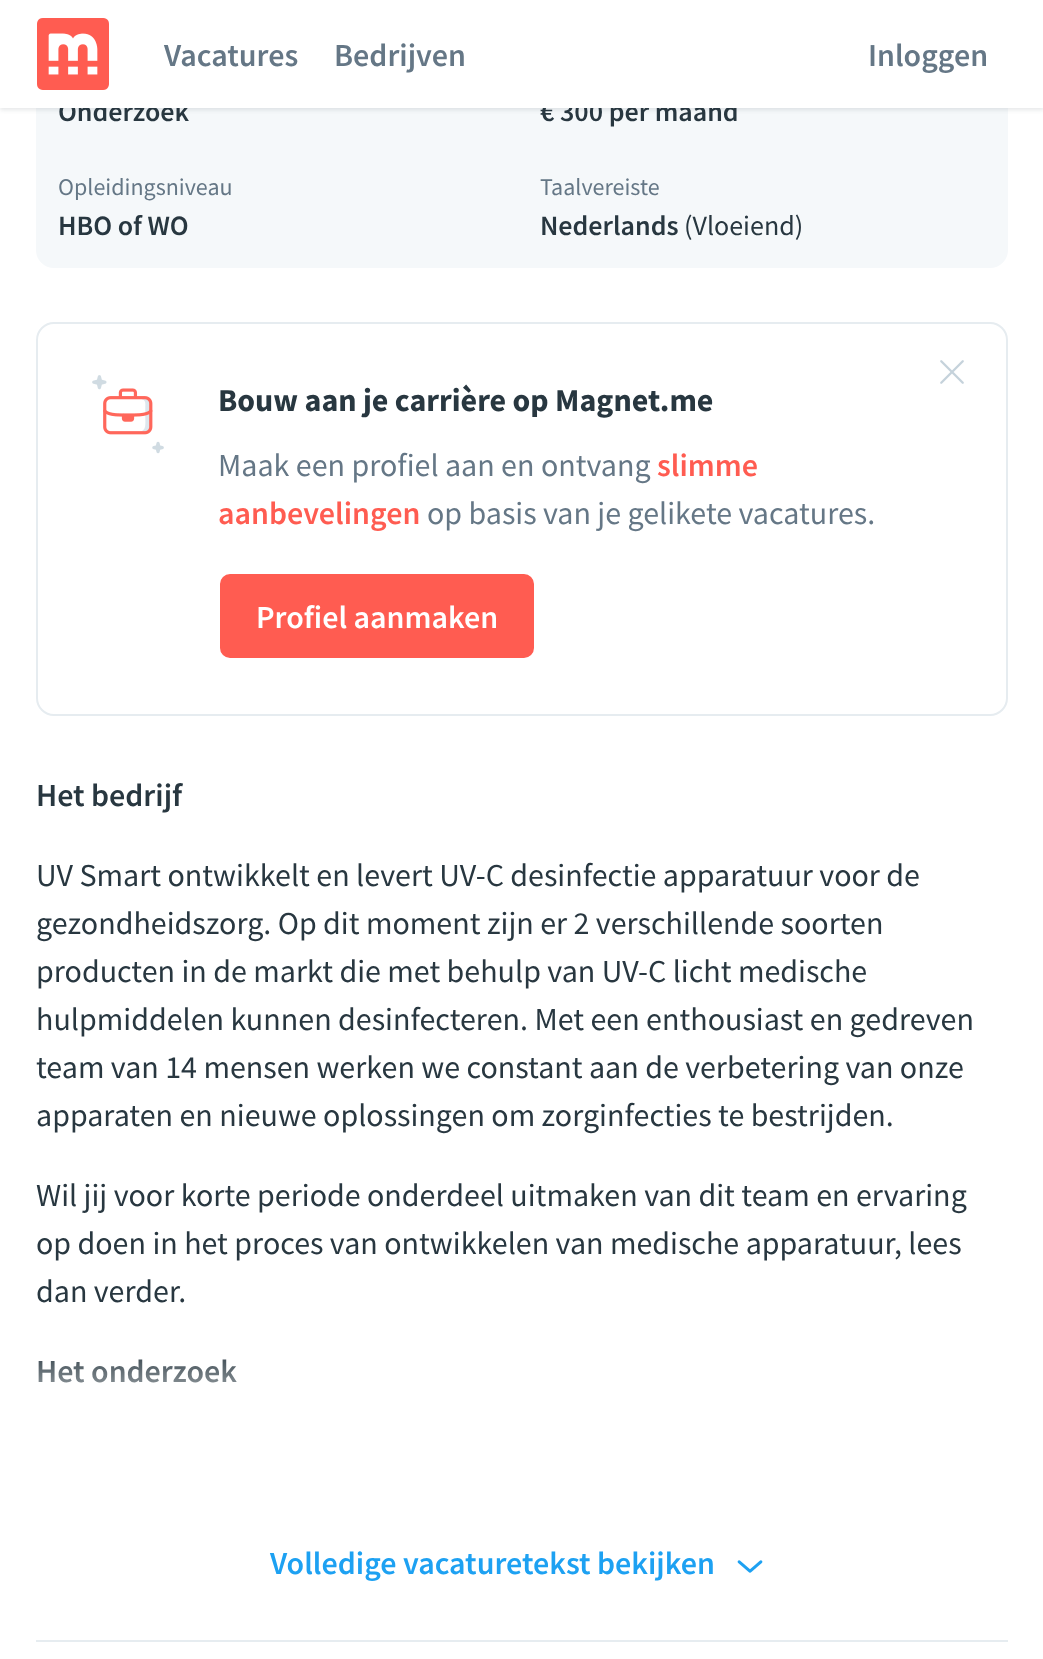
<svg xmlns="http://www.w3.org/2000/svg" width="1043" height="1659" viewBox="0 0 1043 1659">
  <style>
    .t1 { font: 600 28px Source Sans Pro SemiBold; fill: #283740; }
    .t2 { font: 600 32px Source Sans Pro SemiBold; fill: #657786; }
    .t3 { font: 24px Source Sans Pro; fill: #657786; }
    .t4 { font: 28px Source Sans Pro; fill: #283740; }
    .t5 { font: bold 32px Source Sans Pro; fill: #283740; }
    .t6 { font: 32px Source Sans Pro; fill: #657786; }
    .t7 { font: 600 32px Source Sans Pro SemiBold; fill: #ff5c51; }
    .t8 { font: 600 32px Source Sans Pro SemiBold; fill: #fff; }
    .t9 { font: 600 32px Source Sans Pro SemiBold; fill: #283740; }
    .t10 { font: 32px Source Sans Pro; fill: #283740; }
    .t11 { font: 600 32px Source Sans Pro SemiBold; fill: #1da1f2; }
  </style>
  <defs>
    <linearGradient id="g1" gradientUnits="userSpaceOnUse" x1="522" y1="1490" x2="522" y2="1346"><stop offset="0" stop-color="#fff"/><stop offset="0.5" stop-color="#fff" stop-opacity="0.8"/><stop offset="1" stop-color="#fff" stop-opacity="0"/></linearGradient>
  </defs>
  <rect width="100%" height="100%" fill="#fff"/>
  <rect x="36" y="-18" width="972" height="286" rx="18" fill="#f5f8fa"/>
  <rect x="0" y="2" width="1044" height="108" fill="#2837401f" filter="blur(2px)"/>
  <text x="58" y="121" class="t1">Onderzoek</text>
  <text x="540" y="121" class="t1">€ 300 per maand</text>
  <rect x="0" y="0" width="1043" height="108" fill="#fff"/>
  <image x="37" y="18" width="72" height="72" href="images/1.png"/>
  <text x="164" y="66" class="t2">Vacatures</text>
  <text x="334" y="66" class="t2">Bedrijven</text>
  <text x="868" y="66" class="t2">Inloggen</text>
  <text x="58" y="195" class="t3">Opleidingsniveau</text>
  <text x="58" y="235" class="t1">HBO of WO</text>
  <text x="540" y="195" class="t3">Taalvereiste</text>
  <text x="540" y="235" class="t1">Nederlands</text>
  <text x="684" y="235" class="t4">(Vloeiend)</text>
  <rect x="37" y="323" width="970" height="392" rx="17" fill="none" stroke="#e6ecf0" stroke-width="2"/>
  <image x="940" y="360" width="24" height="24" href="images/2.png"/>
  <image x="92" y="375" width="72" height="79" href="images/3.png"/>
  <text x="218" y="411" class="t5">Bouw aan je carrière op Magnet.me</text>
  <text x="218" y="476" class="t6">Maak een profiel aan en ontvang</text>
  <text x="657" y="476" class="t7">slimme</text>
  <text x="218" y="524" class="t7">aanbevelingen</text>
  <text x="427" y="524" class="t6">op basis van je gelikete vacatures.</text>
  <rect x="219" y="573" width="316" height="86" rx="11" fill="#ff5c51" stroke="#fff" stroke-width="2"/>
  <text x="256" y="628" class="t8">Profiel aanmaken</text>
  <text x="36" y="806" class="t9">Het bedrijf</text>
  <text x="36" y="886" class="t10">UV Smart ontwikkelt en levert UV-C desinfectie apparatuur voor de</text>
  <text x="36" y="934" class="t10">gezondheidszorg. Op dit moment zijn er 2 verschillende soorten</text>
  <text x="36" y="982" class="t10">producten in de markt die met behulp van UV-C licht medische</text>
  <text x="36" y="1030" class="t10">hulpmiddelen kunnen desinfecteren. Met een enthousiast en gedreven</text>
  <text x="36" y="1078" class="t10">team van 14 mensen werken we constant aan de verbetering van onze</text>
  <text x="36" y="1126" class="t10">apparaten en nieuwe oplossingen om zorginfecties te bestrijden.</text>
  <text x="36" y="1206" class="t10">Wil jij voor korte periode onderdeel uitmaken van dit team en ervaring</text>
  <text x="36" y="1254" class="t10">op doen in het proces van ontwikkelen van medische apparatuur, lees</text>
  <text x="36" y="1302" class="t10">dan verder.</text>
  <text x="36" y="1382" class="t9">Het onderzoek</text>
  <rect x="38" y="1359" width="199" height="24" fill="url(#g1)"/>
  <text x="270" y="1574" class="t11">Volledige vacaturetekst bekijken</text>
  <image x="737" y="1560" width="26" height="13" href="images/4.png"/>
  <rect x="36" y="1640" width="972" height="2" fill="#e6ecf0"/>
</svg>
